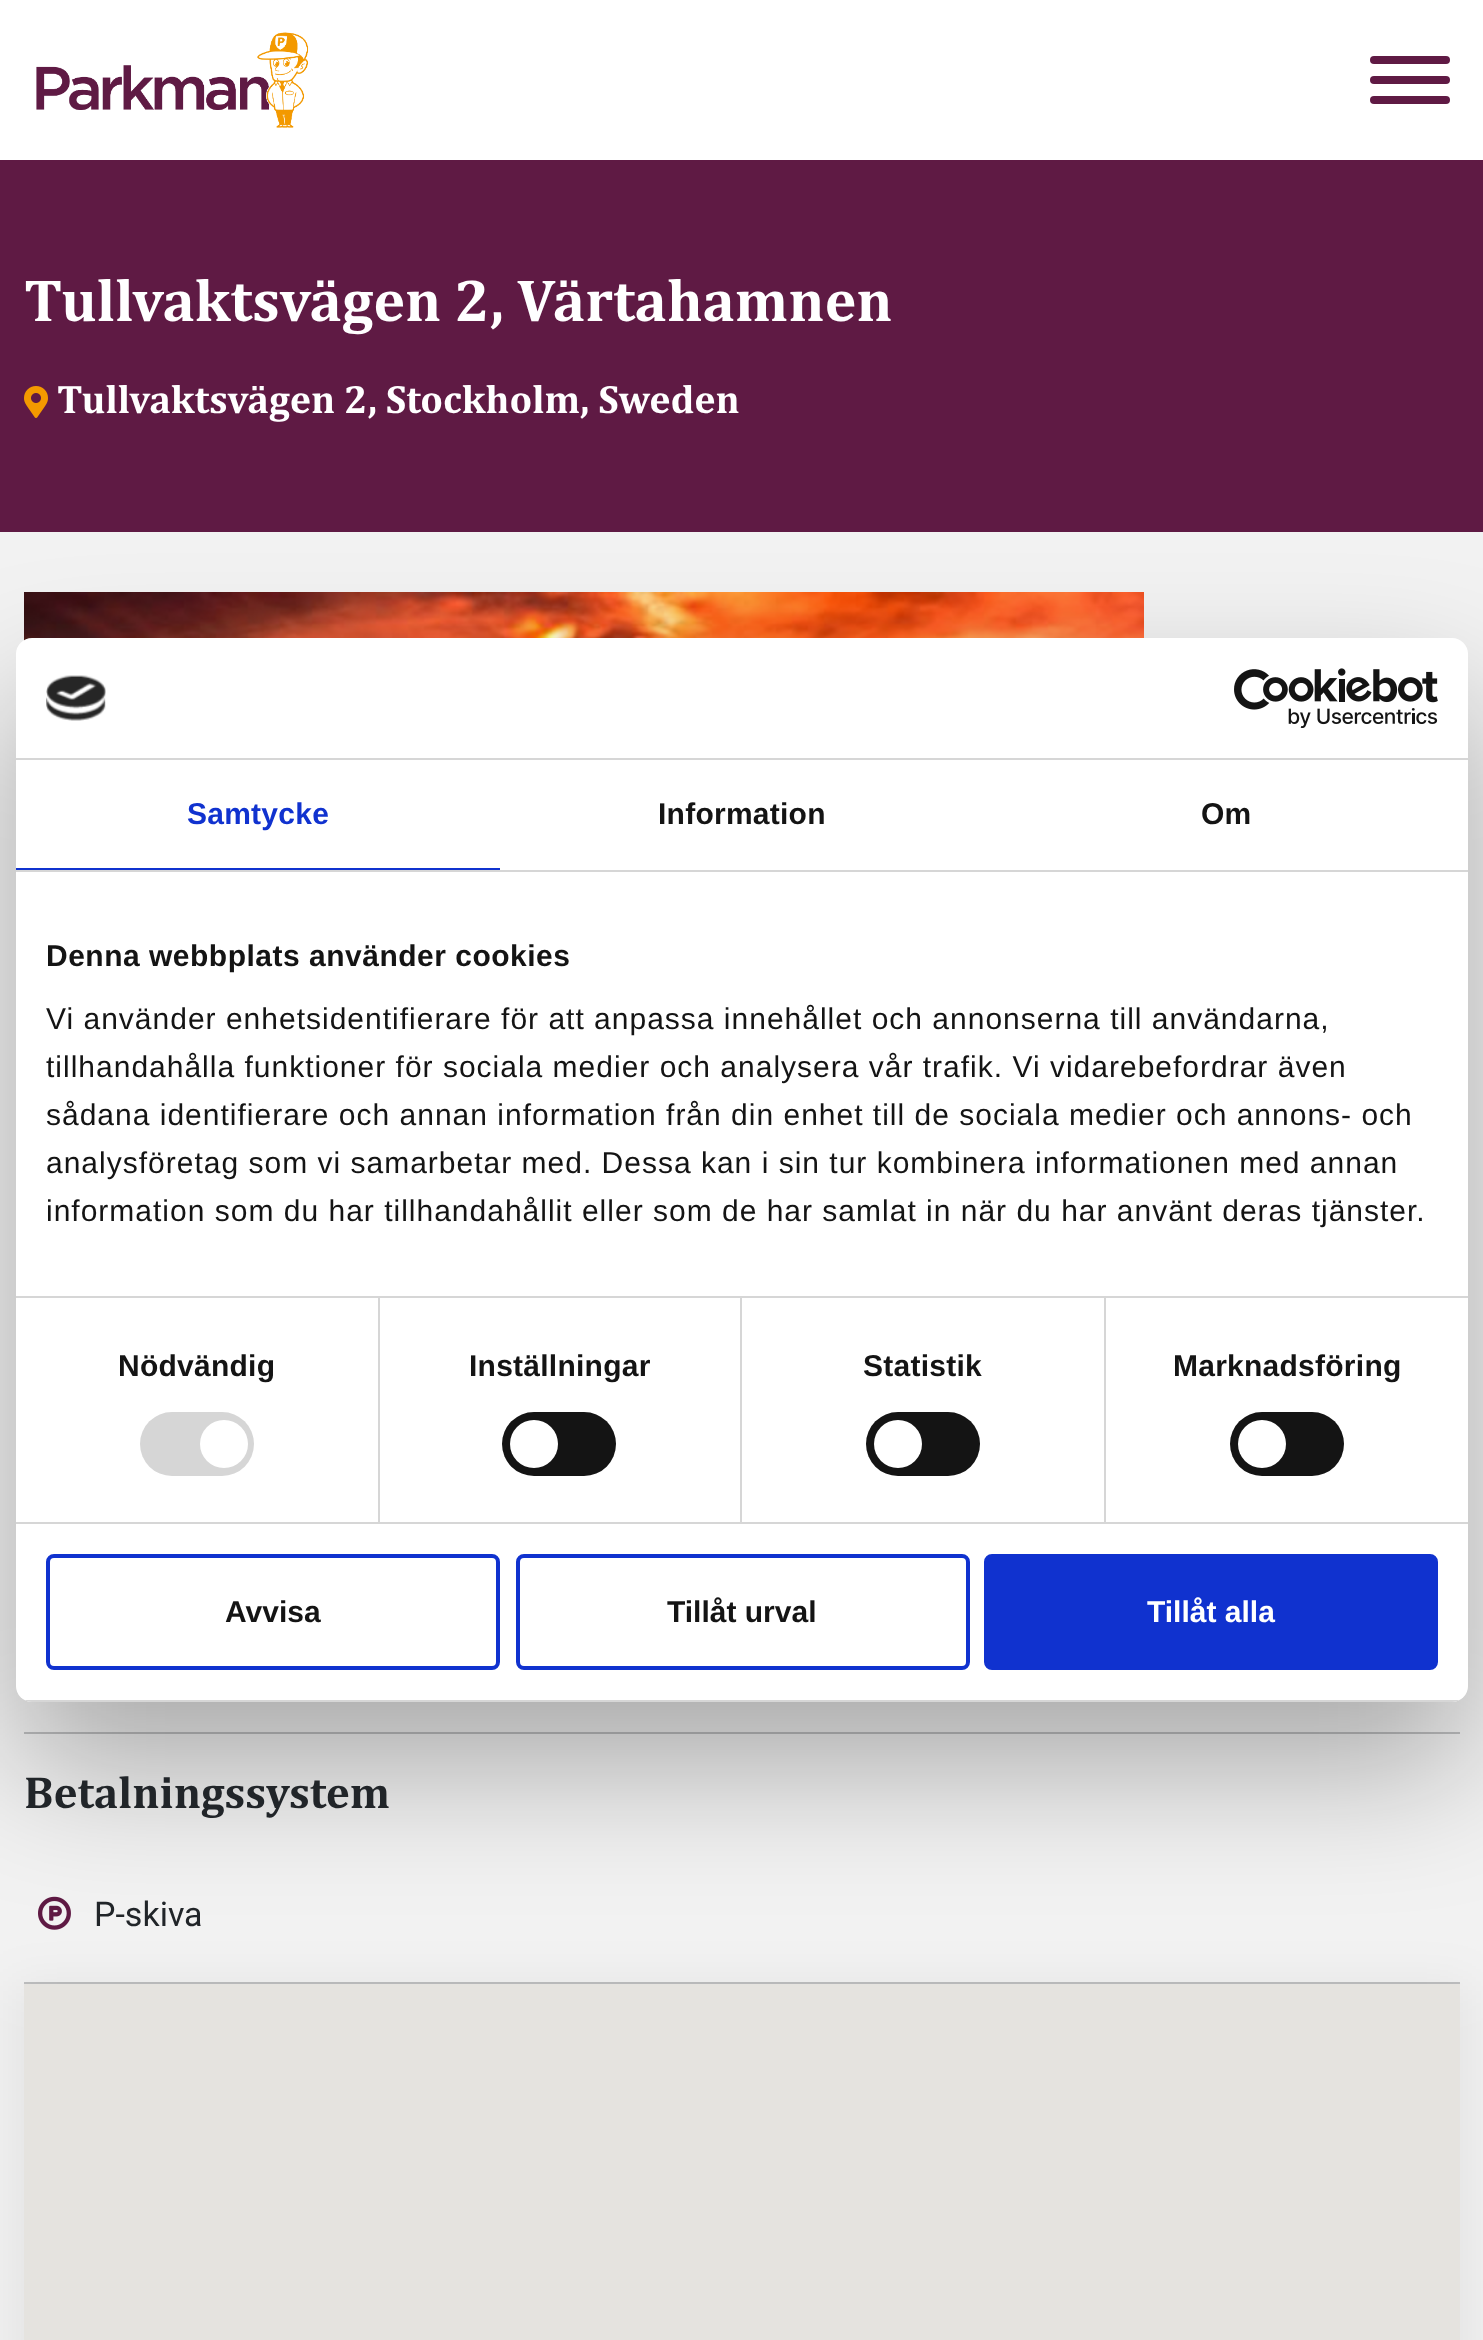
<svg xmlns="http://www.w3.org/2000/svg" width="1483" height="2340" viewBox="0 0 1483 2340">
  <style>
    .t1 { font: bold 60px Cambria; fill: #fff; }
    .t2 { font: bold 40px Cambria; fill: #fff; }
    .t3 { font: bold 30px Liberation Sans; letter-spacing: 0.25px; fill: #1032cf; }
    .t4 { font: bold 30px Liberation Sans; letter-spacing: 0.25px; fill: #141414; }
    .t5 { font: bold 30px Liberation Sans; letter-spacing: 0.5px; fill: #141414; }
    .t6 { font: 30px Liberation Sans; letter-spacing: 1px; fill: #141414; }
    .t7 { font: bold 30px Liberation Sans; fill: #141414; }
    .t8 { font: bold 30px Liberation Sans; fill: #fff; }
    .t9 { font: bold 45.25px Cambria; fill: #212529; }
    .t10 { font: 34px Roboto; fill: #212529; }
  </style>
  <defs>
    <clipPath id="clip1"><rect x="16" y="638" width="1452" height="1064" rx="16"/></clipPath>
  </defs>
  <rect width="100%" height="100%" fill="#5f1a44"/>
  <rect x="0" y="0" width="1483" height="160" fill="#fff"/>
  <image x="36" y="32" width="273" height="96" href="images/1.png"/>
  <rect x="1370" y="76" width="80" height="8" rx="4" fill="#5f1a44"/>
  <rect x="1370" y="56" width="80" height="8" rx="4" fill="#5f1a44"/>
  <rect x="1370" y="96" width="80" height="8" rx="4" fill="#5f1a44"/>
  <text x="24" y="321" class="t1">Tullvaktsvägen 2, Värtahamnen</text>
  <image x="24" y="386" width="24" height="32" href="images/2.png"/>
  <text x="57" y="413" class="t2">Tullvaktsvägen 2, Stockholm, Sweden</text>
  <rect x="0" y="532" width="1483" height="1808" fill="#f2f2f2"/>
  <image x="24" y="592" width="1120" height="49" href="images/5.png"/>
  <rect x="24" y="1732" width="1436" height="2" fill="#bebfc0"/>
  <image x="38" y="1896" width="33" height="34" href="images/6.png"/>
  <rect x="16" y="702" width="1452" height="1064" rx="16" fill="#0000004d" filter="blur(68px)"/>
  <rect x="16" y="638" width="1452" height="1064" rx="16" fill="#fff"/>
  <rect x="16" y="758" width="1452" height="2" fill="#d6d6d6"/>
  <image x="46" y="675" width="60" height="46" href="images/3.png"/>
  <image x="1234" y="668" width="204" height="60" href="images/4.png"/>
  <rect x="16" y="870" width="1452" height="2" fill="#d6d6d6"/>
  <rect x="16" y="868" width="484" height="2" fill="#1032cf"/>
  <text x="187" y="824" class="t3">Samtycke</text>
  <text x="658" y="824" class="t4">Information</text>
  <text x="1201" y="824" class="t4">Om</text>
  <rect x="16" y="1296" width="1452" height="2" fill="#d6d6d6"/>
  <text x="46" y="966" class="t5">Denna webbplats använder cookies</text>
  <text x="46" y="1029" class="t6">Vi använder enhetsidentifierare för att anpassa innehållet och annonserna till användarna,</text>
  <text x="46" y="1077" class="t6">tillhandahålla funktioner för sociala medier och analysera vår trafik. Vi vidarebefordrar även</text>
  <text x="46" y="1125" class="t6">sådana identifierare och annan information från din enhet till de sociala medier och annons- och</text>
  <text x="46" y="1173" class="t6">analysföretag som vi samarbetar med. Dessa kan i sin tur kombinera informationen med annan</text>
  <text x="46" y="1221" class="t6">information som du har tillhandahållit eller som de har samlat in när du har använt deras tjänster.</text>
  <rect x="16" y="1522" width="1452" height="2" fill="#d6d6d6"/>
  <rect x="378" y="1298" width="2" height="224" fill="#d6d6d6"/>
  <text x="118" y="1376" class="t4">Nödvändig</text>
  <rect x="140" y="1412" width="114" height="64" rx="32" fill="#d6d6d6"/>
  <circle cx="224" cy="1444" r="24" fill="#fff"/>
  <rect x="740" y="1298" width="2" height="224" fill="#d6d6d6"/>
  <text x="469" y="1376" class="t4">Inställningar</text>
  <rect x="502" y="1412" width="114" height="64" rx="32" fill="#141414"/>
  <circle cx="534" cy="1444" r="24" fill="#fff"/>
  <rect x="1104" y="1298" width="2" height="224" fill="#d6d6d6"/>
  <text x="863" y="1376" class="t4">Statistik</text>
  <rect x="866" y="1412" width="114" height="64" rx="32" fill="#141414"/>
  <circle cx="898" cy="1444" r="24" fill="#fff"/>
  <text x="1173" y="1376" class="t4">Marknadsföring</text>
  <rect x="1230" y="1412" width="114" height="64" rx="32" fill="#141414"/>
  <circle cx="1262" cy="1444" r="24" fill="#fff"/>
  <g clip-path="url(#clip1)">
    <rect x="16" y="1700" width="1452" height="2" fill="#d6d6d6"/>
  </g>
  <rect x="48" y="1556" width="450" height="112" rx="6" fill="none" stroke="#1032cf" stroke-width="4"/>
  <text x="225" y="1622" class="t7">Avvisa</text>
  <rect x="518" y="1556" width="450" height="112" rx="6" fill="none" stroke="#1032cf" stroke-width="4"/>
  <text x="667" y="1622" class="t7">Tillåt urval</text>
  <rect x="986" y="1556" width="450" height="112" rx="6" fill="#1032cf" stroke="#1032cf" stroke-width="4"/>
  <text x="1147" y="1622" class="t8">Tillåt alla</text>
  <text x="24" y="1808" class="t9">Betalningssystem</text>
  <text x="94" y="1926" class="t10">P-skiva</text>
  <rect x="24" y="1982" width="1436" height="2" fill="#bebfc0"/>
  <rect x="12" y="1986" width="1460" height="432" fill="#0000000f" filter="blur(26px)"/>
  <rect x="24" y="1984" width="1436" height="356" fill="#e5e3df"/>
</svg>
